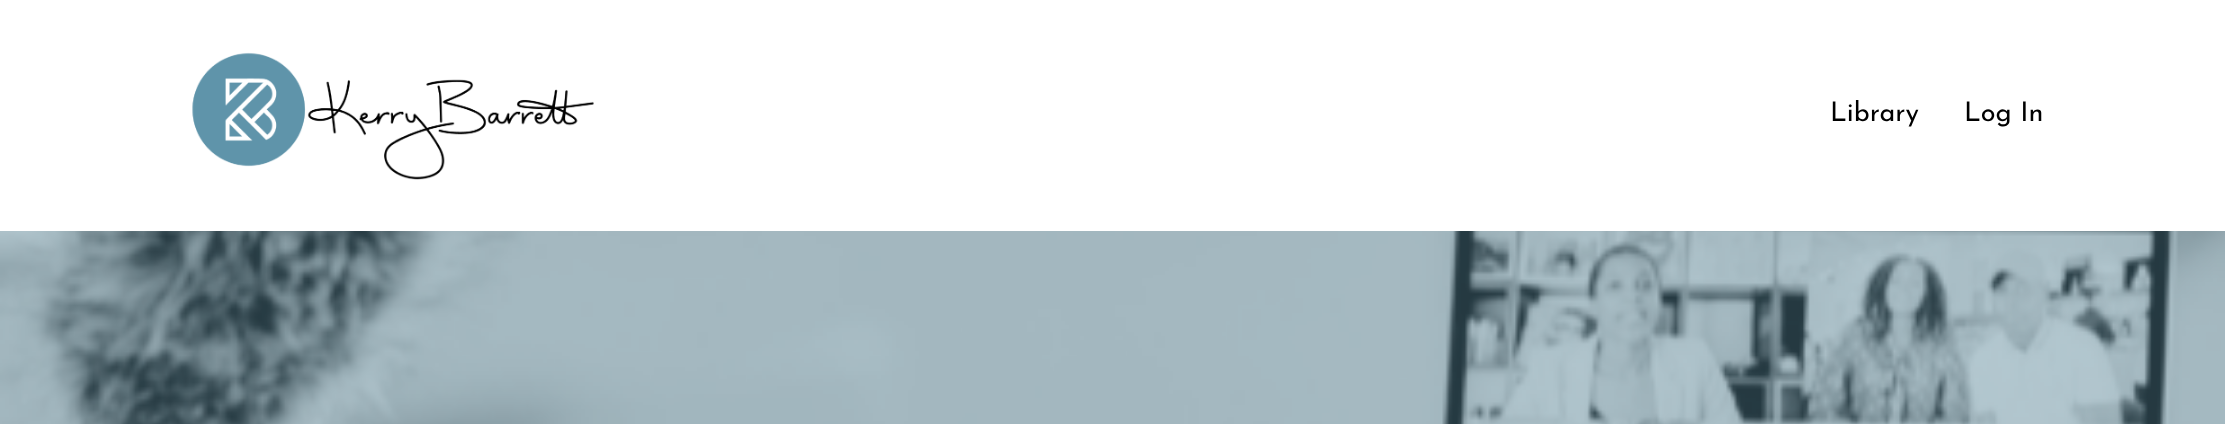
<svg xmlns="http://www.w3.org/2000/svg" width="2225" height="424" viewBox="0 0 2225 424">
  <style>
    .t1 { font: 27px Josefin Sans; fill: #000; }
  </style>
  <rect width="100%" height="100%" fill="#fff"/>
  <image x="192" y="52" width="402" height="128" href="images/1.png"/>
  <text x="1830" y="121" class="t1">Library</text>
  <text x="1964" y="121" class="t1">Log In</text>
  <image x="0" y="231" width="2225" height="193" href="images/2.png"/>
</svg>
